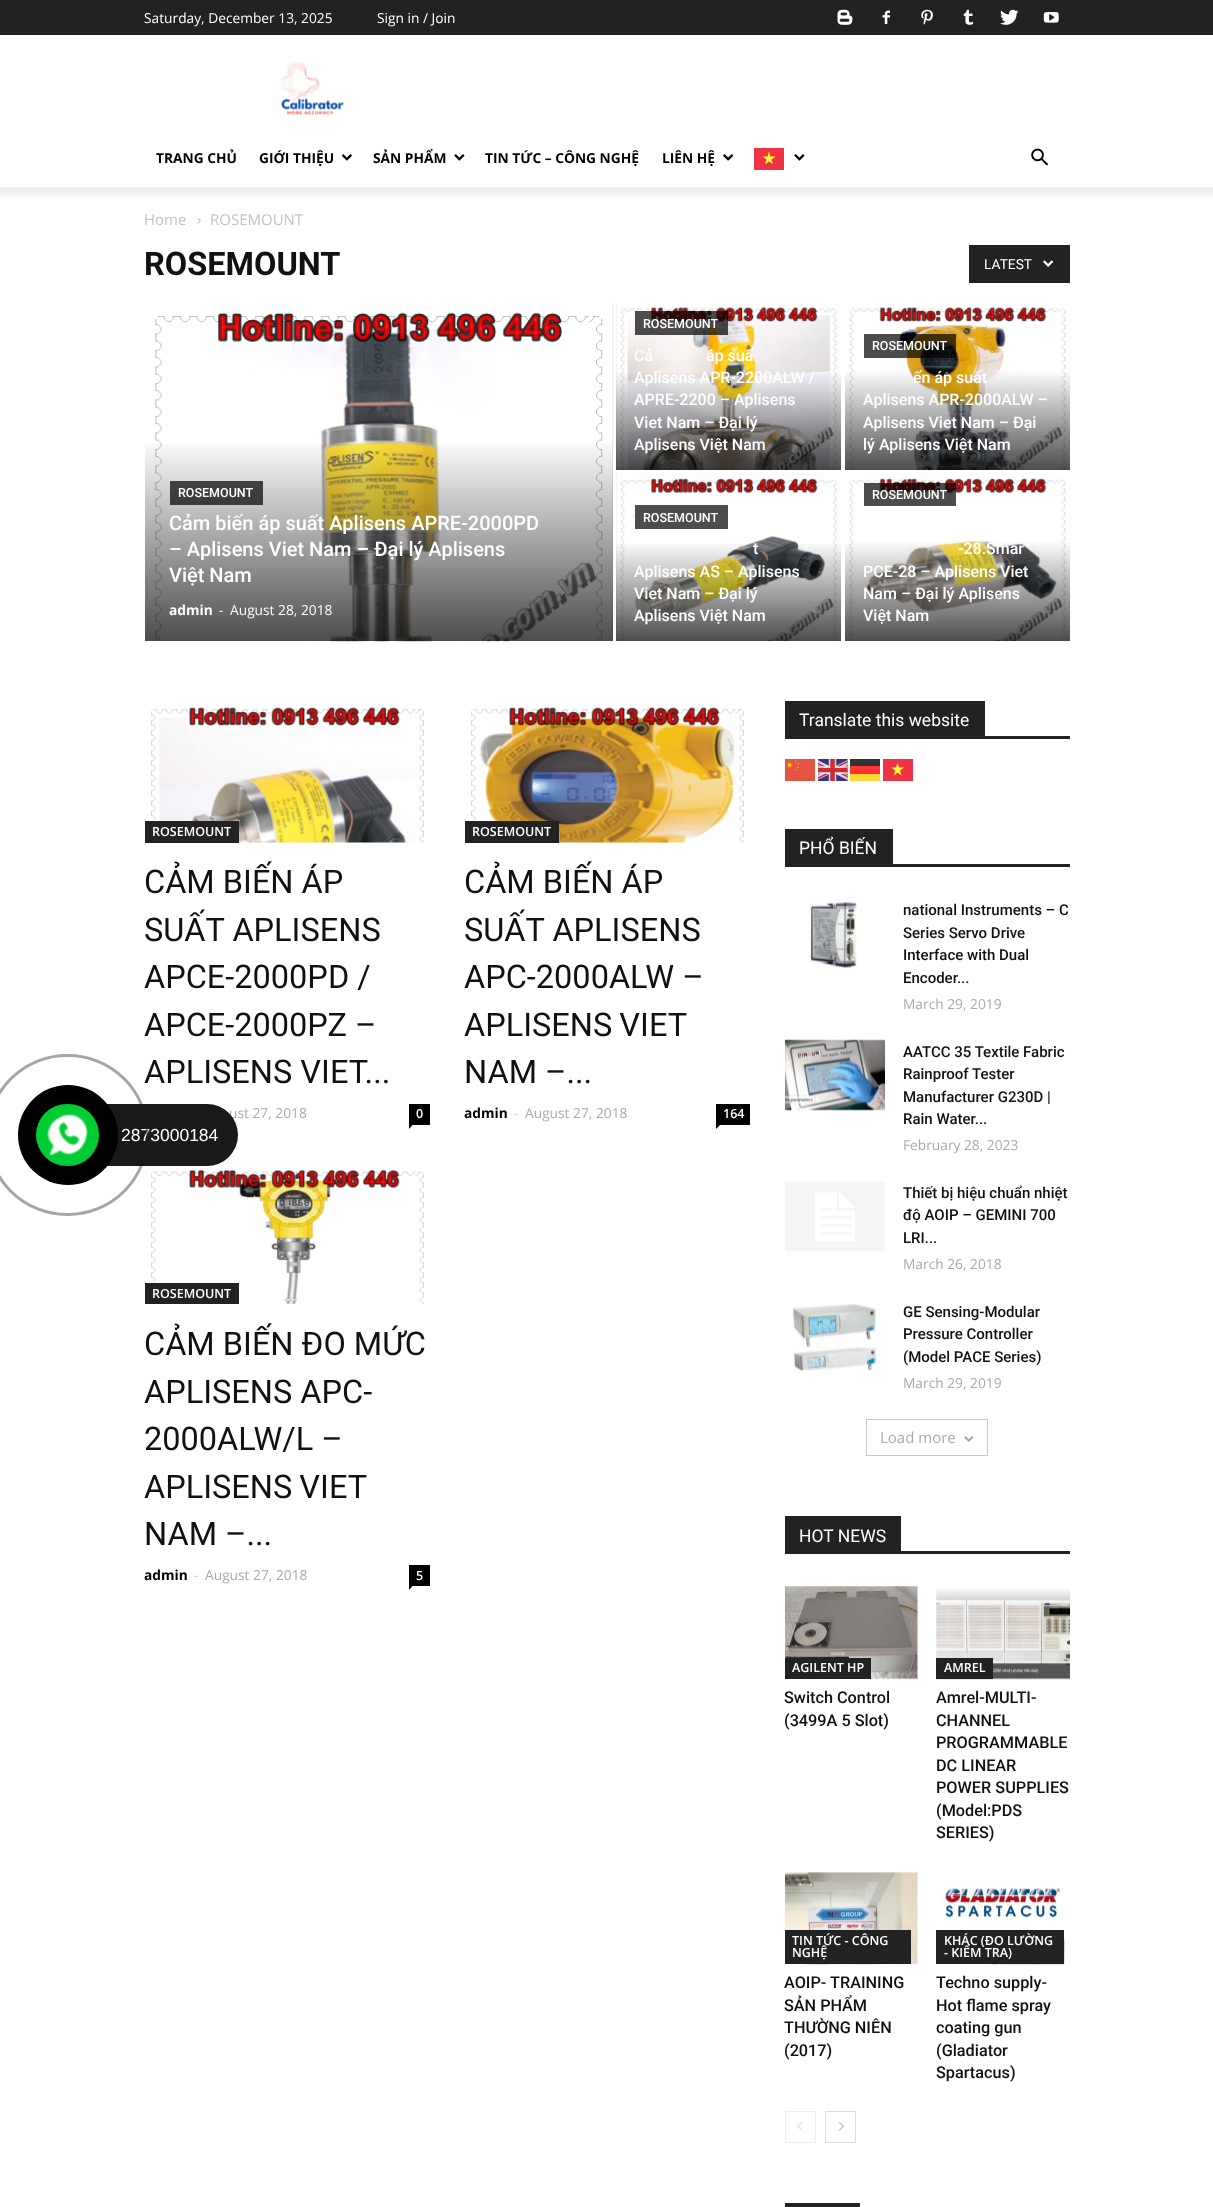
<svg xmlns="http://www.w3.org/2000/svg" width="1213" height="2207" viewBox="0 0 1213 2207">
  <style>
    .t1 { font: 13.75px Open Sans; fill: #fff; }
    .t2 { font: bold 13.75px Open Sans; fill: #000; }
    .t3 { font: 15px Open Sans; fill: #c3c3c3; }
    .t4 { font: bold 32.5px Roboto; fill: #111; }
    .t5 { font: 13.75px Roboto; fill: #fff; }
    .t6 { font: 500 12.5px Roboto; fill: #fff; }
    .t7 { font: 500 20px Roboto; fill: #fff; }
    .t8 { font: bold 13.75px Open Sans; fill: #fff; }
    .t9 { font: 500 16px Roboto; fill: #fff; }
    .t10 { font: 600 12.5px Open Sans; fill: #fff; }
    .t11 { font: 32.5px Roboto; fill: #111; }
    .t12 { font: 13.75px Open Sans; fill: #aaa; }
    .t13 { font: 13.75px Open Sans; fill: #ccc; }
    .t14 { font: 17.5px Roboto; fill: #fff; }
    .t15 { font: 500 15px Roboto; fill: #111; }
    .t16 { font: 15px Open Sans; fill: #aaa; }
    .t17 { font: 500 16.25px Roboto; fill: #111; }
    .t18 { font: 17.5px Liberation Sans; fill: #fff; }
  </style>
  <defs>
    <linearGradient id="g1" gradientUnits="userSpaceOnUse" x1="379" y1="302" x2="379" y2="641"><stop offset="0.4" stop-color="#000" stop-opacity="0"/><stop offset="1" stop-color="#000" stop-opacity="0.7"/></linearGradient>
    <linearGradient id="g2" gradientUnits="userSpaceOnUse" x1="729" y1="303" x2="729" y2="470"><stop offset="0.4" stop-color="#000" stop-opacity="0"/><stop offset="1" stop-color="#000" stop-opacity="0.7"/></linearGradient>
    <linearGradient id="g3" gradientUnits="userSpaceOnUse" x1="729" y1="474" x2="729" y2="641"><stop offset="0.4" stop-color="#000" stop-opacity="0"/><stop offset="1" stop-color="#000" stop-opacity="0.7"/></linearGradient>
  </defs>
  <rect width="100%" height="100%" fill="#fff"/>
  <rect x="0" y="0" width="1213" height="35" fill="#222"/>
  <text x="144" y="23" class="t1">Saturday, December 13, 2025</text>
  <text x="377" y="23" class="t1">Sign in / Join</text>
  <image x="837" y="9" width="16" height="16" href="images/1.png"/>
  <image x="882" y="10" width="8" height="15" href="images/2.png"/>
  <image x="921" y="9" width="12" height="16" href="images/3.png"/>
  <image x="963" y="9" width="10" height="16" href="images/4.png"/>
  <image x="1000" y="9" width="19" height="16" href="images/5.png"/>
  <image x="1043" y="12" width="16" height="11" href="images/6.png"/>
  <image x="279" y="62" width="66" height="53" href="images/7.png"/>
  <text x="156" y="163" class="t2">TRANG CHỦ</text>
  <text x="259" y="163" class="t2">GIỚI THIỆU</text>
  <image x="341" y="154" width="11" height="7" href="images/8.png"/>
  <text x="373" y="163" class="t2">SẢN PHẨM</text>
  <image x="454" y="154" width="11" height="7" href="images/9.png"/>
  <text x="485" y="163" class="t2">TIN TỨC – CÔNG NGHỆ</text>
  <text x="662" y="163" class="t2">LIÊN HỆ</text>
  <image x="723" y="154" width="11" height="7" href="images/10.png"/>
  <rect x="754" y="148" width="30" height="22" fill="#f03344"/>
  <path d="M773 164L769 161.5L765 164.5L766.5 159.5L762.5 156.5H767.5L769 151.5L770.5 156.5H775.5L771.5 159.5Z" fill="#ff3" fill-rule="evenodd"/>
  <image x="794" y="154" width="11" height="7" href="images/9.png"/>
  <image x="1031" y="148" width="17" height="18" href="images/11.png"/>
  <image x="0" y="187" width="1213" height="11" href="images/12.png"/>
  <text x="144" y="225" class="t3">Home</text>
  <image x="197" y="218" width="4" height="6" href="images/13.png"/>
  <text x="210" y="225" class="t3">ROSEMOUNT</text>
  <text x="144" y="275" class="t4">ROSEMOUNT</text>
  <rect x="969" y="245" width="101" height="38" fill="#222"/>
  <text x="984" y="269" class="t5">LATEST</text>
  <image x="1043" y="260" width="11" height="7" href="images/14.png"/>
  <rect x="612" y="303" width="1" height="338" fill="#e5e5e5"/>
  <image x="145" y="303" width="468" height="339" href="images/15.png"/>
  <rect x="145" y="444" width="468" height="197" fill="url(#g1)"/>
  <rect x="170" y="481" width="93" height="24" fill="#000000b3"/>
  <text x="178" y="497" class="t6">ROSEMOUNT</text>
  <text x="169" y="530" class="t7">Cảm biến áp suất Aplisens APRE-2000PD</text>
  <text x="169" y="556" class="t7">– Aplisens Viet Nam – Đại lý Aplisens</text>
  <text x="169" y="582" class="t7">Việt Nam</text>
  <text x="169" y="615" class="t8">admin</text>
  <text x="219" y="615" class="t1">-</text>
  <text x="230" y="615" class="t1">August 28, 2018</text>
  <rect x="616" y="303" width="1" height="167" fill="#e5e5e5"/>
  <image x="616" y="303" width="225" height="167" href="images/16.png"/>
  <rect x="616" y="373" width="225" height="97" fill="url(#g2)"/>
  <rect x="635" y="311" width="93" height="24" fill="#000000b3"/>
  <text x="643" y="328" class="t6">ROSEMOUNT</text>
  <text x="634" y="361" class="t9">Cả</text>
  <text x="706" y="361" class="t9">áp suấ</text>
  <text x="634" y="383" class="t9">Aplisens APR-2200ALW /</text>
  <text x="634" y="405" class="t9">APRE-2200 – Aplisens</text>
  <text x="634" y="428" class="t9">Viet Nam – Đại lý</text>
  <text x="634" y="450" class="t9">Aplisens Việt Nam</text>
  <image x="845" y="303" width="225" height="167" href="images/17.png"/>
  <rect x="864" y="334" width="92" height="24" fill="#000000b3"/>
  <text x="872" y="350" class="t6">ROSEMOUNT</text>
  <text x="913" y="383" class="t9">ến áp suất</text>
  <text x="863" y="405" class="t9">Aplisens APR-2000ALW –</text>
  <text x="863" y="428" class="t9">Aplisens Viet Nam – Đại</text>
  <text x="863" y="450" class="t9">lý Aplisens Việt Nam</text>
  <rect x="616" y="474" width="1" height="167" fill="#e5e5e5"/>
  <image x="616" y="474" width="225" height="168" href="images/18.png"/>
  <rect x="616" y="544" width="225" height="97" fill="url(#g3)"/>
  <rect x="635" y="505" width="93" height="24" fill="#4d4d4d"/>
  <text x="643" y="522" class="t6">ROSEMOUNT</text>
  <text x="753" y="554" class="t9">t</text>
  <text x="634" y="577" class="t9">Aplisens AS – Aplisens</text>
  <text x="634" y="599" class="t9">Viet Nam – Đại lý</text>
  <text x="634" y="621" class="t9">Aplisens Việt Nam</text>
  <image x="845" y="474" width="225" height="168" href="images/19.png"/>
  <rect x="864" y="483" width="92" height="23" fill="#000000b3"/>
  <text x="872" y="499" class="t6">ROSEMOUNT</text>
  <text x="958" y="554" class="t9">-28.Smar</text>
  <text x="863" y="577" class="t9">PCE-28 – Aplisens Viet</text>
  <text x="863" y="599" class="t9">Nam – Đại lý Aplisens</text>
  <text x="863" y="621" class="t9">Việt Nam</text>
  <image x="151" y="707" width="273" height="136" href="images/20.png"/>
  <rect x="145" y="821" width="94" height="22" fill="#222"/>
  <text x="152" y="836" class="t10">ROSEMOUNT</text>
  <text x="144" y="893" class="t11">CẢM BIẾN ÁP</text>
  <text x="144" y="941" class="t11">SUẤT APLISENS</text>
  <text x="144" y="988" class="t11">APCE-2000PD /</text>
  <text x="144" y="1036" class="t11">APCE-2000PZ –</text>
  <text x="144" y="1083" class="t11">APLISENS VIET...</text>
  <text x="229" y="1118" class="t12">ust 27, 2018</text>
  <rect x="409" y="1104" width="21" height="21" fill="#000"/>
  <text x="416" y="1118" class="t10">0</text>
  <path d="M409 1125H412.5L409 1129Z" fill="#000"/>
  <image x="471" y="707" width="273" height="136" href="images/21.png"/>
  <rect x="465" y="821" width="94" height="22" fill="#222"/>
  <text x="472" y="836" class="t10">ROSEMOUNT</text>
  <text x="464" y="893" class="t11">CẢM BIẾN ÁP</text>
  <text x="464" y="941" class="t11">SUẤT APLISENS</text>
  <text x="464" y="988" class="t11">APC-2000ALW –</text>
  <text x="464" y="1036" word-spacing="-1" class="t11">APLISENS VIET</text>
  <text x="464" y="1083" class="t11">NAM –...</text>
  <text x="464" y="1118" class="t2">admin</text>
  <text x="514" y="1118" class="t13">-</text>
  <text x="525" y="1118" class="t12">August 27, 2018</text>
  <rect x="716" y="1104" width="34" height="21" fill="#000"/>
  <text x="723" y="1118" class="t10">164</text>
  <path d="M716 1125H720L716 1129Z" fill="#000"/>
  <image x="151" y="1169" width="273" height="135" href="images/22.png"/>
  <rect x="145" y="1283" width="94" height="21" fill="#222"/>
  <text x="152" y="1298" class="t10">ROSEMOUNT</text>
  <text x="144" y="1355" class="t11">CẢM BIẾN ĐO MỨC</text>
  <text x="144" y="1403" class="t11">APLISENS APC-</text>
  <text x="144" y="1450" class="t11">2000ALW/L –</text>
  <text x="144" y="1498" word-spacing="-1" class="t11">APLISENS VIET</text>
  <text x="144" y="1545" class="t11">NAM –...</text>
  <text x="144" y="1580" class="t2">admin</text>
  <text x="194" y="1580" class="t13">-</text>
  <text x="205" y="1580" class="t12">August 27, 2018</text>
  <rect x="409" y="1565" width="21" height="21" fill="#000"/>
  <text x="416" y="1580" class="t10">5</text>
  <path d="M409 1586H412.5L409 1590Z" fill="#000"/>
  <rect x="785" y="736" width="285" height="3" fill="#222"/>
  <rect x="785" y="701" width="200" height="35" fill="#222"/>
  <text x="799" y="726" class="t14">Translate this website</text>
  <image x="785" y="759" width="30" height="22" href="images/23.png"/>
  <image x="818" y="759" width="30" height="22" href="images/24.png"/>
  <rect x="850" y="759" width="30" height="7" fill="#333"/>
  <rect x="883" y="759" width="30" height="22" fill="#f03344"/>
  <rect x="850" y="766" width="30" height="8" fill="#f33"/>
  <path d="M901.5 775.5L897.5 772.5L894 775.5L895 770.5L891.5 767.5H896L897.5 763L899 767.5H904L900 770.5Z" fill="#ff3" fill-rule="evenodd"/>
  <rect x="850" y="774" width="30" height="7" fill="#ffd633"/>
  <rect x="785" y="864" width="285" height="3" fill="#222"/>
  <rect x="785" y="829" width="108" height="35" fill="#222"/>
  <text x="799" y="854" class="t14">PHỔ BIẾN</text>
  <image x="809" y="898" width="48" height="71" href="images/25.png"/>
  <text x="903" y="915" class="t15">national Instruments – C</text>
  <text x="903" y="938" class="t15">Series Servo Drive</text>
  <text x="903" y="960" class="t15">Interface with Dual</text>
  <text x="903" y="983" class="t15">Encoder...</text>
  <text x="903" y="1009" class="t12">March 29, 2019</text>
  <image x="785" y="1039" width="100" height="72" href="images/26.png"/>
  <text x="903" y="1057" class="t15">AATCC 35 Textile Fabric</text>
  <text x="903" y="1079" class="t15">Rainproof Tester</text>
  <text x="903" y="1102" class="t15">Manufacturer G230D |</text>
  <text x="903" y="1124" class="t15">Rain Water...</text>
  <text x="903" y="1150" class="t12">February 28, 2023</text>
  <image x="785" y="1181" width="100" height="71" href="images/27.png"/>
  <text x="903" y="1198" class="t15">Thiết bị hiệu chuẩn nhiệt</text>
  <text x="903" y="1220" class="t15">độ AOIP – GEMINI 700</text>
  <text x="903" y="1243" class="t15">LRI...</text>
  <text x="903" y="1269" class="t12">March 26, 2018</text>
  <image x="793" y="1303" width="88" height="68" href="images/28.png"/>
  <text x="903" y="1317" class="t15">GE Sensing-Modular</text>
  <text x="903" y="1339" class="t15">Pressure Controller</text>
  <text x="903" y="1362" class="t15">(Model PACE Series)</text>
  <text x="903" y="1388" class="t12">March 29, 2019</text>
  <rect x="866.5" y="1419.5" width="121" height="36" fill="none" stroke="#c9c9c9"/>
  <text x="880" y="1443" class="t16">Load more</text>
  <image x="964" y="1436" width="10" height="6" href="images/29.png"/>
  <rect x="785" y="1551" width="285" height="3" fill="#222"/>
  <rect x="785" y="1516" width="116" height="35" fill="#222"/>
  <text x="799" y="1542" class="t14">HOT NEWS</text>
  <image x="785" y="1586" width="133" height="94" href="images/30.png"/>
  <rect x="785" y="1658" width="86" height="21" fill="#222"/>
  <text x="792" y="1672" class="t10">AGILENT HP</text>
  <text x="784" y="1703" class="t17">Switch Control</text>
  <text x="784" y="1726" class="t17">(3499A 5 Slot)</text>
  <image x="936" y="1588" width="134" height="92" href="images/31.png"/>
  <rect x="936" y="1658" width="57" height="21" fill="#222"/>
  <text x="944" y="1672" class="t10">AMREL</text>
  <text x="936" y="1703" class="t17">Amrel-MULTI-</text>
  <text x="936" y="1726" class="t17">CHANNEL</text>
  <text x="936" y="1748" class="t17">PROGRAMMABLE</text>
  <text x="936" y="1771" class="t17">DC LINEAR</text>
  <text x="936" y="1793" class="t17">POWER SUPPLIES</text>
  <text x="936" y="1816" class="t17">(Model:PDS</text>
  <text x="936" y="1838" class="t17">SERIES)</text>
  <image x="785" y="1872" width="133" height="93" href="images/32.png"/>
  <rect x="785" y="1930" width="126" height="34" fill="#222"/>
  <text x="792" y="1945" class="t10">TIN TỨC - CÔNG</text>
  <text x="792" y="1957" class="t10">NGHỆ</text>
  <text x="784" y="1988" class="t17">AOIP- TRAINING</text>
  <text x="784" y="2011" class="t17">SẢN PHẨM</text>
  <text x="784" y="2033" class="t17">THƯỜNG NIÊN</text>
  <text x="784" y="2056" class="t17">(2017)</text>
  <image x="941" y="1887" width="128" height="78" href="images/33.png"/>
  <rect x="936" y="1930" width="128" height="34" fill="#222"/>
  <text x="944" y="1945" class="t10">KHÁC (ĐO LƯỜNG</text>
  <text x="944" y="1957" class="t10">- KIỂM TRA)</text>
  <text x="936" y="1988" class="t17">Techno supply-</text>
  <text x="936" y="2011" class="t17">Hot flame spray</text>
  <text x="936" y="2033" class="t17">coating gun</text>
  <text x="936" y="2056" class="t17">(Gladiator</text>
  <text x="936" y="2078" class="t17">Spartacus)</text>
  <rect x="785.5" y="2111.5" width="30" height="31" fill="none" stroke="#eee"/>
  <image x="797" y="2122" width="6" height="9" href="images/34.png"/>
  <rect x="825.5" y="2111.5" width="30" height="31" fill="none" stroke="#dcdcdc"/>
  <image x="838" y="2122" width="7" height="9" href="images/35.png"/>
  <rect x="785" y="2203" width="75" height="4" fill="#222"/>
  <rect x="36" y="1104" width="202" height="62" rx="31" fill="#1a1919"/>
  <text x="121" y="1141" class="t18">2873000184</text>
  <rect x="-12.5" y="1055.5" width="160" height="159" rx="79.5" fill="none" stroke="#1e1e1e66" stroke-width="3"/>
  <circle cx="68" cy="1135" r="50" fill="#000"/>
  <rect x="36" y="1104" width="63" height="62" rx="31" fill="#0c3"/>
  <image x="47" y="1114" width="42" height="42" href="images/36.png"/>
</svg>
